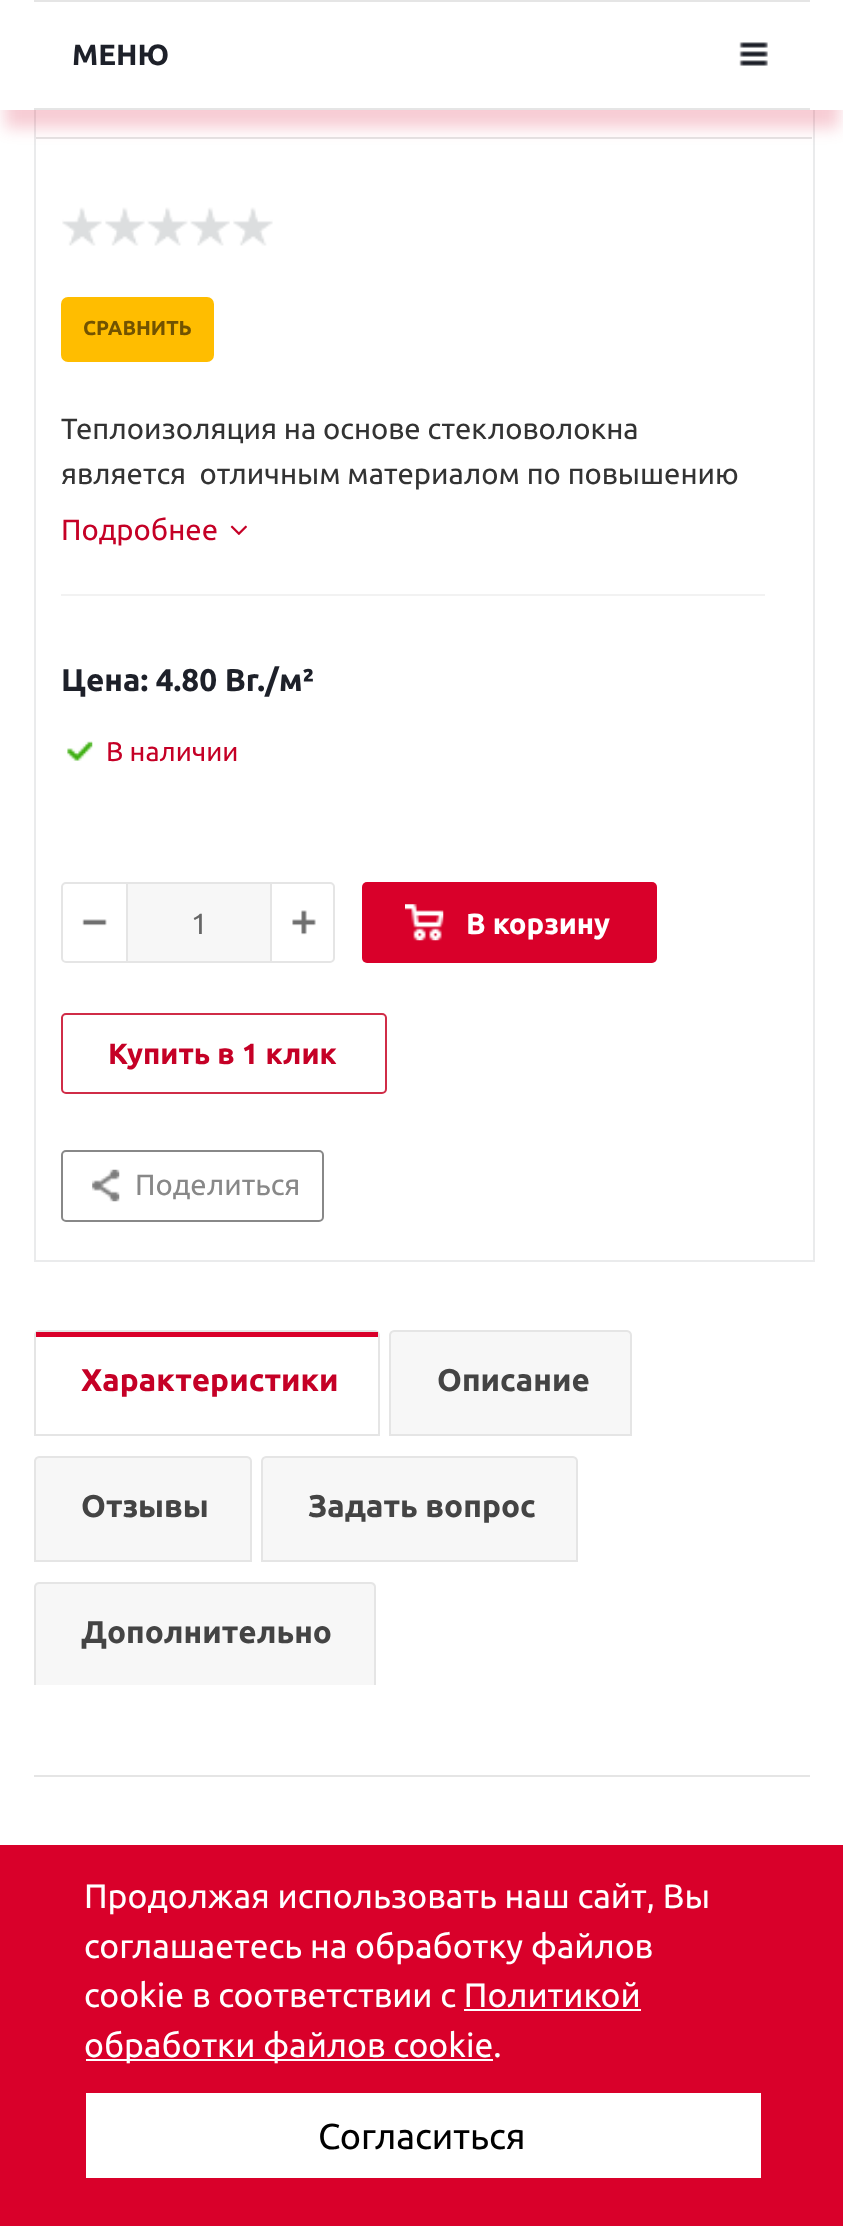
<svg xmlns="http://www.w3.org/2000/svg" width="843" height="2226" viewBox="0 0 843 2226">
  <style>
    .t1 { font: bold 29.25px Ubuntu; fill: #1d2029; }
    .t2 { font: bold 20.25px Ubuntu; fill: #725300; }
    .t3 { font: 29.25px Ubuntu; fill: #333; }
    .t4 { font: 29.25px Ubuntu; fill: #c50026; }
    .t5 { font: bold 31.5px Ubuntu; fill: #1d2029; }
    .t6 { font: 27px Ubuntu; fill: #c50026; }
    .t7 { font: 29.25px Ubuntu; fill: #666; }
    .t8 { font: bold 29.25px Ubuntu; fill: #fff; }
    .t9 { font: bold 29.25px Ubuntu; fill: #c50026; }
    .t10 { font: 29.25px Ubuntu; fill: #888; }
    .t11 { font: bold 31.5px Ubuntu; fill: #c50026; }
    .t12 { font: bold 31.5px Ubuntu; fill: #444; }
    .t13 { font: 33.75px Ubuntu; fill: #fff; }
    .t14 { font: 36px Ubuntu; fill: #000; }
  </style>
  <defs>
    <clipPath id="clip1"><rect x="34" y="1307" width="776" height="378"/></clipPath>
  </defs>
  <rect width="100%" height="100%" fill="#fff"/>
  <rect x="35" y="-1" width="779" height="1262" fill="none" stroke="#eaebec" stroke-width="2"/>
  <rect x="36" y="137" width="776" height="2" fill="#e5e5e5"/>
  <rect x="5" y="27" width="834" height="101" fill="#d9002a33" filter="blur(8px)"/>
  <rect x="0" y="0" width="843" height="110" fill="#fff"/>
  <rect x="34" y="0" width="776" height="2" fill="#e5e5e5"/>
  <rect x="34" y="108" width="776" height="2" fill="#e5e5e5"/>
  <text x="72" y="65" class="t1">МЕНЮ</text>
  <image x="739" y="42" width="29" height="24" href="images/1.png"/>
  <rect x="61" y="594" width="704" height="2" fill="#f2f2f2"/>
  <image x="62" y="207" width="40" height="39" href="images/2.png"/>
  <image x="105" y="207" width="40" height="39" href="images/3.png"/>
  <image x="147" y="207" width="41" height="39" href="images/4.png"/>
  <image x="190" y="207" width="40" height="39" href="images/5.png"/>
  <image x="233" y="207" width="40" height="39" href="images/2.png"/>
  <rect x="61" y="297" width="153" height="65" rx="7" fill="#ffbd00"/>
  <text x="83" y="335" class="t2">СРАВНИТЬ</text>
  <text x="61" y="439" class="t3">Теплоизоляция на основе стекловолокна</text>
  <text x="61" y="484" class="t3" xml:space="preserve">является  отличным материалом по повышению</text>
  <text x="61" y="540" class="t4">Подробнее</text>
  <image x="230" y="525" width="17" height="10" href="images/6.png"/>
  <text x="61" y="691" class="t5">Цена: 4.80 Br./м²</text>
  <image x="67" y="741" width="26" height="20" href="images/7.png"/>
  <text x="106" y="761" class="t6">В наличии</text>
  <rect x="62" y="883" width="272" height="79" rx="4" fill="none" stroke="#e5e5e5" stroke-width="2"/>
  <image x="82" y="919" width="25" height="7" href="images/8.png"/>
  <rect x="128" y="884" width="142" height="77" fill="#f7f7f7"/>
  <rect x="270" y="884" width="2" height="77" fill="#e5e5e5"/>
  <rect x="126" y="884" width="2" height="77" fill="#e5e5e5"/>
  <text x="191" y="934" class="t7">1</text>
  <image x="292" y="910" width="24" height="25" href="images/9.png"/>
  <rect x="362" y="882" width="295" height="81" rx="5" fill="#d9002a"/>
  <image x="405" y="904" width="39" height="37" href="images/10.png"/>
  <text x="466" y="934" class="t8">В корзину</text>
  <rect x="62" y="1014" width="324" height="79" rx="4" fill="none" stroke="#d02c47" stroke-width="2"/>
  <text x="108" y="1064" class="t9">Купить в 1 клик</text>
  <rect x="62" y="1151" width="261" height="70" rx="4" fill="none" stroke="#888" stroke-width="2"/>
  <image x="92" y="1169" width="28" height="33" href="images/11.png"/>
  <text x="135" y="1195" class="t10">Поделиться</text>
  <path d="M39 1331H375C377 1331 379 1333 379 1335V1435H35V1335C35 1333 37 1331 39 1331Z" fill="none" stroke="#e5e5e5" stroke-width="2"/>
  <rect x="36" y="1332" width="342" height="5" fill="#d9002a"/>
  <text x="81" y="1391" class="t11">Характеристики</text>
  <path d="M394 1331H627C629 1331 631 1333 631 1335V1435H390V1335C390 1333 392 1331 394 1331Z" fill="#f7f7f7" stroke="#e5e5e5" stroke-width="2"/>
  <text x="437" y="1391" class="t12">Описание</text>
  <path d="M39 1457H247C249 1457 251 1459 251 1461V1561H35V1461C35 1459 37 1457 39 1457Z" fill="#f7f7f7" stroke="#e5e5e5" stroke-width="2"/>
  <text x="81" y="1517" class="t12">Отзывы</text>
  <path d="M266 1457H573C575 1457 577 1459 577 1461V1561H262V1461C262 1459 264 1457 266 1457Z" fill="#f7f7f7" stroke="#e5e5e5" stroke-width="2"/>
  <text x="308" y="1517" class="t12">Задать вопрос</text>
  <path d="M39 1582H371C374 1582 376 1584 376 1587V1685H34V1587C34 1584 36 1582 39 1582Z" fill="#f7f7f7"/>
  <g clip-path="url(#clip1)">
    <path d="M39 1583H371C373 1583 375 1585 375 1587V1687H35V1587C35 1585 37 1583 39 1583Z" fill="none" stroke="#e5e5e5" stroke-width="2"/>
  </g>
  <text x="81" y="1643" class="t12">Дополнительно</text>
  <rect x="34" y="1775" width="776" height="2" fill="#e5e5e5"/>
  <rect x="0" y="1845" width="843" height="381" fill="#d9002a"/>
  <text x="84" y="1908" class="t13">Продолжая использовать наш сайт, Вы</text>
  <text x="84" y="1958" class="t13">соглашаетесь на обработку файлов</text>
  <text x="84" y="2007" class="t13">cookie в соответствии с Политикой</text>
  <rect x="86" y="2059" width="407" height="2" fill="#fff"/>
  <text x="84" y="2057" class="t13">обработки файлов cookie.</text>
  <rect x="464" y="2009" width="177" height="2" fill="#fff"/>
  <rect x="86" y="2093" width="675" height="85" fill="#fff"/>
  <text x="318" y="2149" class="t14">Согласиться</text>
</svg>
